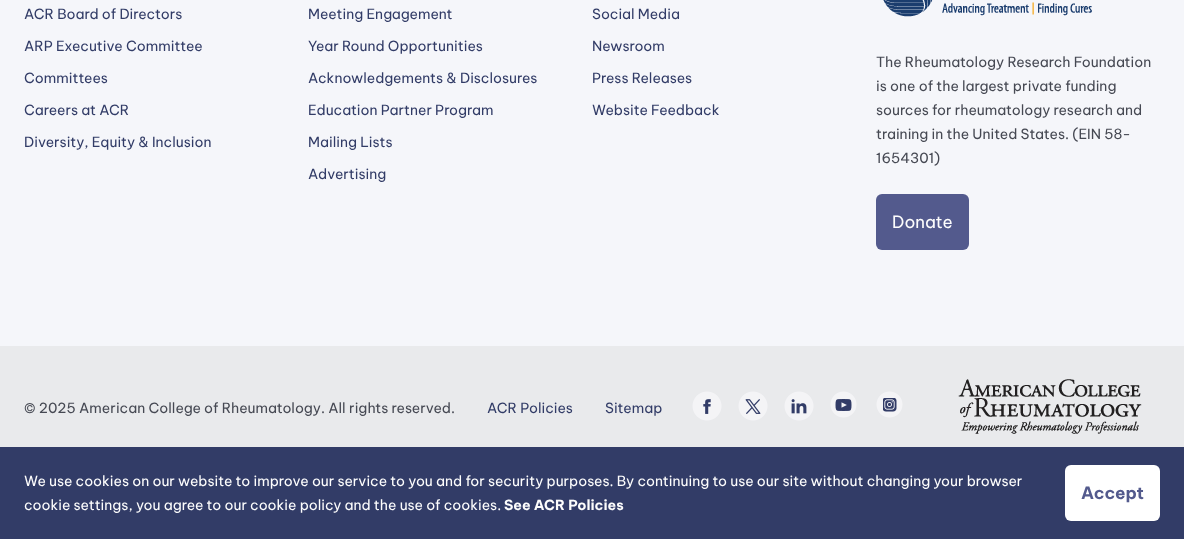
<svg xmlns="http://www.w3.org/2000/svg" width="1184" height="539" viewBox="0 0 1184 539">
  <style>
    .t1 { font: 14px Be Vietnam Pro; fill: #323c67; }
    .t2 { font: 14px Be Vietnam Pro; fill: #464953; }
    .t3 { font: 17px Be Vietnam Pro; fill: #fdfdfd; }
    .t4 { font: 14px Be Vietnam Pro; fill: #fdfdfd; }
    .t5 { font: bold 14px Be Vietnam Pro; fill: #fdfdfd; }
    .t6 { font: bold 17px Be Vietnam Pro; fill: #535a8d; }
  </style>
  <rect width="100%" height="100%" fill="#f5f6fa"/>
  <text x="24" y="19" class="t1">ACR Board of Directors</text>
  <text x="24" y="51" class="t1">ARP Executive Committee</text>
  <text x="24" y="83" class="t1">Committees</text>
  <text x="24" y="115" class="t1">Careers at ACR</text>
  <text x="24" y="147" class="t1">Diversity, Equity &amp; Inclusion</text>
  <text x="308" y="19" class="t1">Meeting Engagement</text>
  <text x="308" y="51" class="t1">Year Round Opportunities</text>
  <text x="308" y="83" class="t1">Acknowledgements &amp; Disclosures</text>
  <text x="308" y="115" class="t1">Education Partner Program</text>
  <text x="308" y="147" class="t1">Mailing Lists</text>
  <text x="308" y="179" class="t1">Advertising</text>
  <text x="592" y="19" class="t1">Social Media</text>
  <text x="592" y="51" class="t1">Newsroom</text>
  <text x="592" y="83" class="t1">Press Releases</text>
  <text x="592" y="115" class="t1">Website Feedback</text>
  <image x="883" y="0" width="209" height="17" href="images/1.png"/>
  <text x="876" y="67" class="t2">The Rheumatology Research Foundation</text>
  <text x="876" y="91" class="t2">is one of the largest private funding</text>
  <text x="876" y="115" class="t2">sources for rheumatology research and</text>
  <text x="876" y="139" class="t2">training in the United States. (EIN 58-</text>
  <text x="876" y="163" class="t2">1654301)</text>
  <rect x="876" y="194" width="93" height="56" rx="6" fill="#535a8d"/>
  <text x="892" y="228" class="t3">Donate</text>
  <rect x="0" y="346" width="1184" height="101" fill="#e9eaec"/>
  <text x="24" y="413" class="t2">© 2025 American College of Rheumatology. All rights reserved.</text>
  <text x="487" y="413" class="t1">ACR Policies</text>
  <text x="605" y="413" class="t1">Sitemap</text>
  <image x="692" y="391" width="30" height="30" href="images/2.png"/>
  <image x="738" y="391" width="30" height="30" href="images/3.png"/>
  <image x="784" y="391" width="30" height="30" href="images/4.png"/>
  <image x="830" y="391" width="27" height="27" href="images/5.png"/>
  <image x="876" y="391" width="27" height="27" href="images/6.png"/>
  <image x="958" y="379" width="184" height="55" href="images/7.png"/>
  <rect x="0" y="447" width="1184" height="92" fill="#323c67"/>
  <text x="24" y="486" class="t4">We use cookies on our website to improve our service to you and for security purposes. By continuing to use our site without changing your browser</text>
  <text x="24" y="510" class="t4">cookie settings, you agree to our cookie policy and the use of cookies.</text>
  <text x="504" y="510" class="t5">See ACR Policies</text>
  <rect x="1065" y="465" width="95" height="56" rx="6" fill="#fff"/>
  <text x="1081" y="499" class="t6">Accept</text>
</svg>
